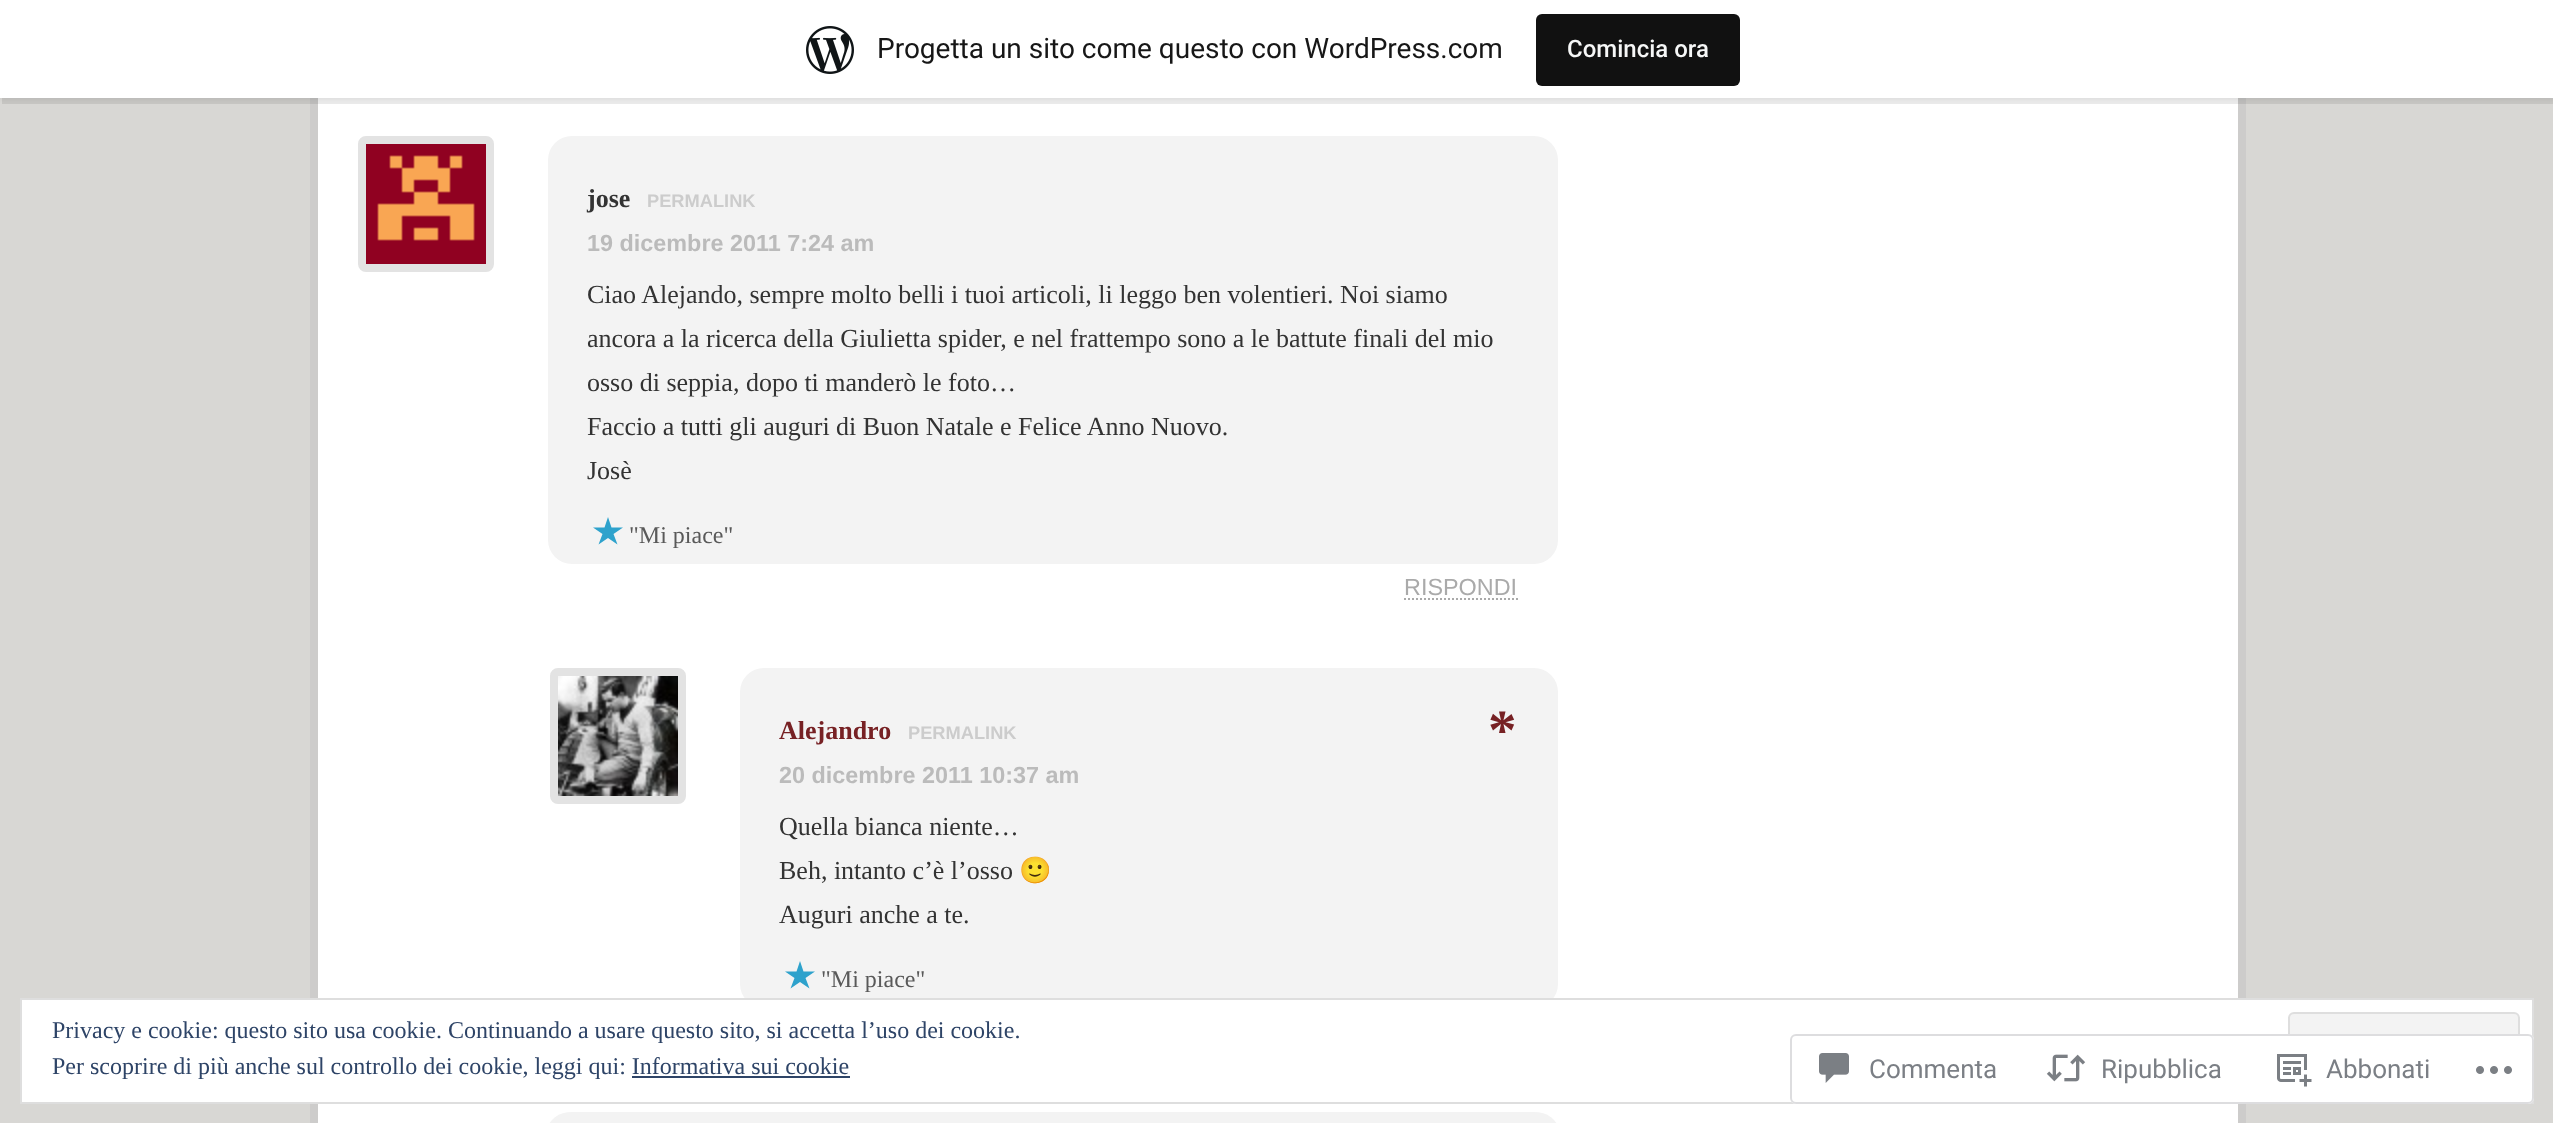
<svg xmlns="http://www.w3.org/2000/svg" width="2553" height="1123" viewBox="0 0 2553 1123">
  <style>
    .t1 { font: 28px Roboto; fill: #171717; }
    .t2 { font: 500 24px Roboto; fill: #f6f7f7; }
    .t3 { font: bold 26px Liberation Serif; fill: #333; }
    .t4 { font: bold 18.25px Liberation Sans; fill: #ccc; }
    .t5 { font: bold 23.4px Liberation Sans; fill: #bbb; }
    .t6 { font: 26px Liberation Serif; fill: #333; }
    .t7 { font: 24px Liberation Serif; fill: #595959; }
    .t8 { font: 23.4px Liberation Sans; fill: #aaa; }
    .t9 { font: bold 26px Liberation Serif; fill: #772124; }
    .t10 { font: bold 57px Liberation Serif; fill: #772124; }
    .t11 { font: 26px Noto Color Emoji; fill: #333; }
    .t12 { font: 24px Liberation Serif; fill: #2e4467; }
    .t13 { font: 26px Roboto; fill: #7b7f85; }
  </style>
  <rect width="100%" height="100%" fill="#d8d7d4"/>
  <rect x="318" y="98" width="1920" height="1025" fill="#fff"/>
  <rect x="2238" y="98" width="8" height="1025" fill="#cdcccb"/>
  <rect x="310" y="98" width="8" height="1025" fill="#cdcccb"/>
  <rect x="0" y="2" width="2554" height="98" fill="#0000000d" filter="blur(2px)"/>
  <path d="M2 98V104H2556V6H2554V98Z" fill="#00000014"/>
  <rect x="0" y="0" width="2553" height="98" fill="#fff"/>
  <image x="806" y="26" width="48" height="48" href="images/1.png"/>
  <text x="877" y="58" class="t1">Progetta un sito come questo con WordPress.com</text>
  <rect x="1536" y="14" width="204" height="72" rx="6" fill="#111"/>
  <text x="1567" y="57" class="t2">Comincia ora</text>
  <rect x="362" y="140" width="128" height="128" rx="4" fill="none" stroke="#e3e3e3" stroke-width="8"/>
  <image x="366" y="144" width="120" height="120" href="images/2.png"/>
  <rect x="548" y="136" width="1010" height="428" rx="24" fill="#f3f3f3"/>
  <text x="587" y="207" class="t3">jose</text>
  <text x="647" y="207" class="t4">PERMALINK</text>
  <text x="587" y="251" class="t5">19 dicembre 2011 7:24 am</text>
  <text x="587" y="303" class="t6">Ciao Alejando, sempre molto belli i tuoi articoli, li leggo ben volentieri. Noi siamo</text>
  <text x="587" y="347" class="t6">ancora a la ricerca della Giulietta spider, e nel frattempo sono a le battute finali del mio</text>
  <text x="587" y="391" class="t6">osso di seppia, dopo ti manderò le foto…</text>
  <text x="587" y="435" class="t6">Faccio a tutti gli auguri di Buon Natale e Felice Anno Nuovo.</text>
  <text x="587" y="479" class="t6">Josè</text>
  <path d="M623 527.5L613.5 534L617.5 544.5L608 538L598.5 544.5L602.5 534L593 527.5H604.5L608 517L611.5 527.5Z" fill="#2ea2cc"/>
  <text x="629" y="543" class="t7">"Mi piace"</text>
  <text x="1404" y="595" class="t8">RISPONDI</text>
  <path d="M1404 599H1518" fill="none" stroke="#aaa" stroke-width="2" stroke-dasharray="2 2"/>
  <rect x="554" y="672" width="128" height="128" rx="4" fill="none" stroke="#e3e3e3" stroke-width="8"/>
  <image x="558" y="676" width="120" height="120" href="images/3.png"/>
  <rect x="740" y="668" width="818" height="340" rx="24" fill="#f3f3f3"/>
  <text x="779" y="739" class="t9">Alejandro</text>
  <text x="908" y="739" class="t4">PERMALINK</text>
  <text x="1488" y="749" class="t10">*</text>
  <text x="779" y="783" class="t5">20 dicembre 2011 10:37 am</text>
  <text x="779" y="835" class="t6">Quella bianca niente…</text>
  <text x="779" y="879" class="t6">Beh, intanto c’è l’osso</text>
  <text x="1019" y="879" class="t11">🙂</text>
  <text x="779" y="923" class="t6">Auguri anche a te.</text>
  <path d="M815 971.5L805.5 978L809.5 988.5L800 982L790.5 988.5L794.5 978L785 971.5H796.5L800 961L803.5 971.5Z" fill="#2ea2cc"/>
  <text x="821" y="987" class="t7">"Mi piace"</text>
  <rect x="548" y="1112" width="1010" height="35" rx="24" fill="#f3f3f3"/>
  <rect x="21" y="999" width="2512" height="104" fill="#fff" stroke="#dedede" stroke-width="2"/>
  <text x="52" y="1038" class="t12">Privacy e cookie: questo sito usa cookie. Continuando a usare questo sito, si accetta l’uso dei cookie.</text>
  <rect x="2289" y="1013" width="230" height="76" rx="5" fill="#f3f3f3" stroke="#dedede" stroke-width="2"/>
  <text x="52" y="1074" class="t12">Per scoprire di più anche sul controllo dei cookie, leggi qui: Informativa sui cookie</text>
  <rect x="632" y="1076" width="218" height="2" fill="#2e4467"/>
  <rect x="1790" y="1034" width="744" height="70" rx="6" fill="#fffffffa"/>
  <rect x="1791" y="1035" width="742" height="68" rx="5" fill="none" stroke="#dcdcdefa" stroke-width="2"/>
  <image x="1819" y="1053" width="30" height="30" href="images/4.png"/>
  <text x="1869" y="1078" class="t13">Commenta</text>
  <image x="2046" y="1054" width="40" height="28" href="images/5.png"/>
  <text x="2101" y="1078" class="t13">Ripubblica</text>
  <image x="2277" y="1054" width="35" height="33" href="images/6.png"/>
  <text x="2326" y="1078" class="t13">Abbonati</text>
  <image x="2476" y="1066" width="36" height="8" href="images/7.png"/>
</svg>
